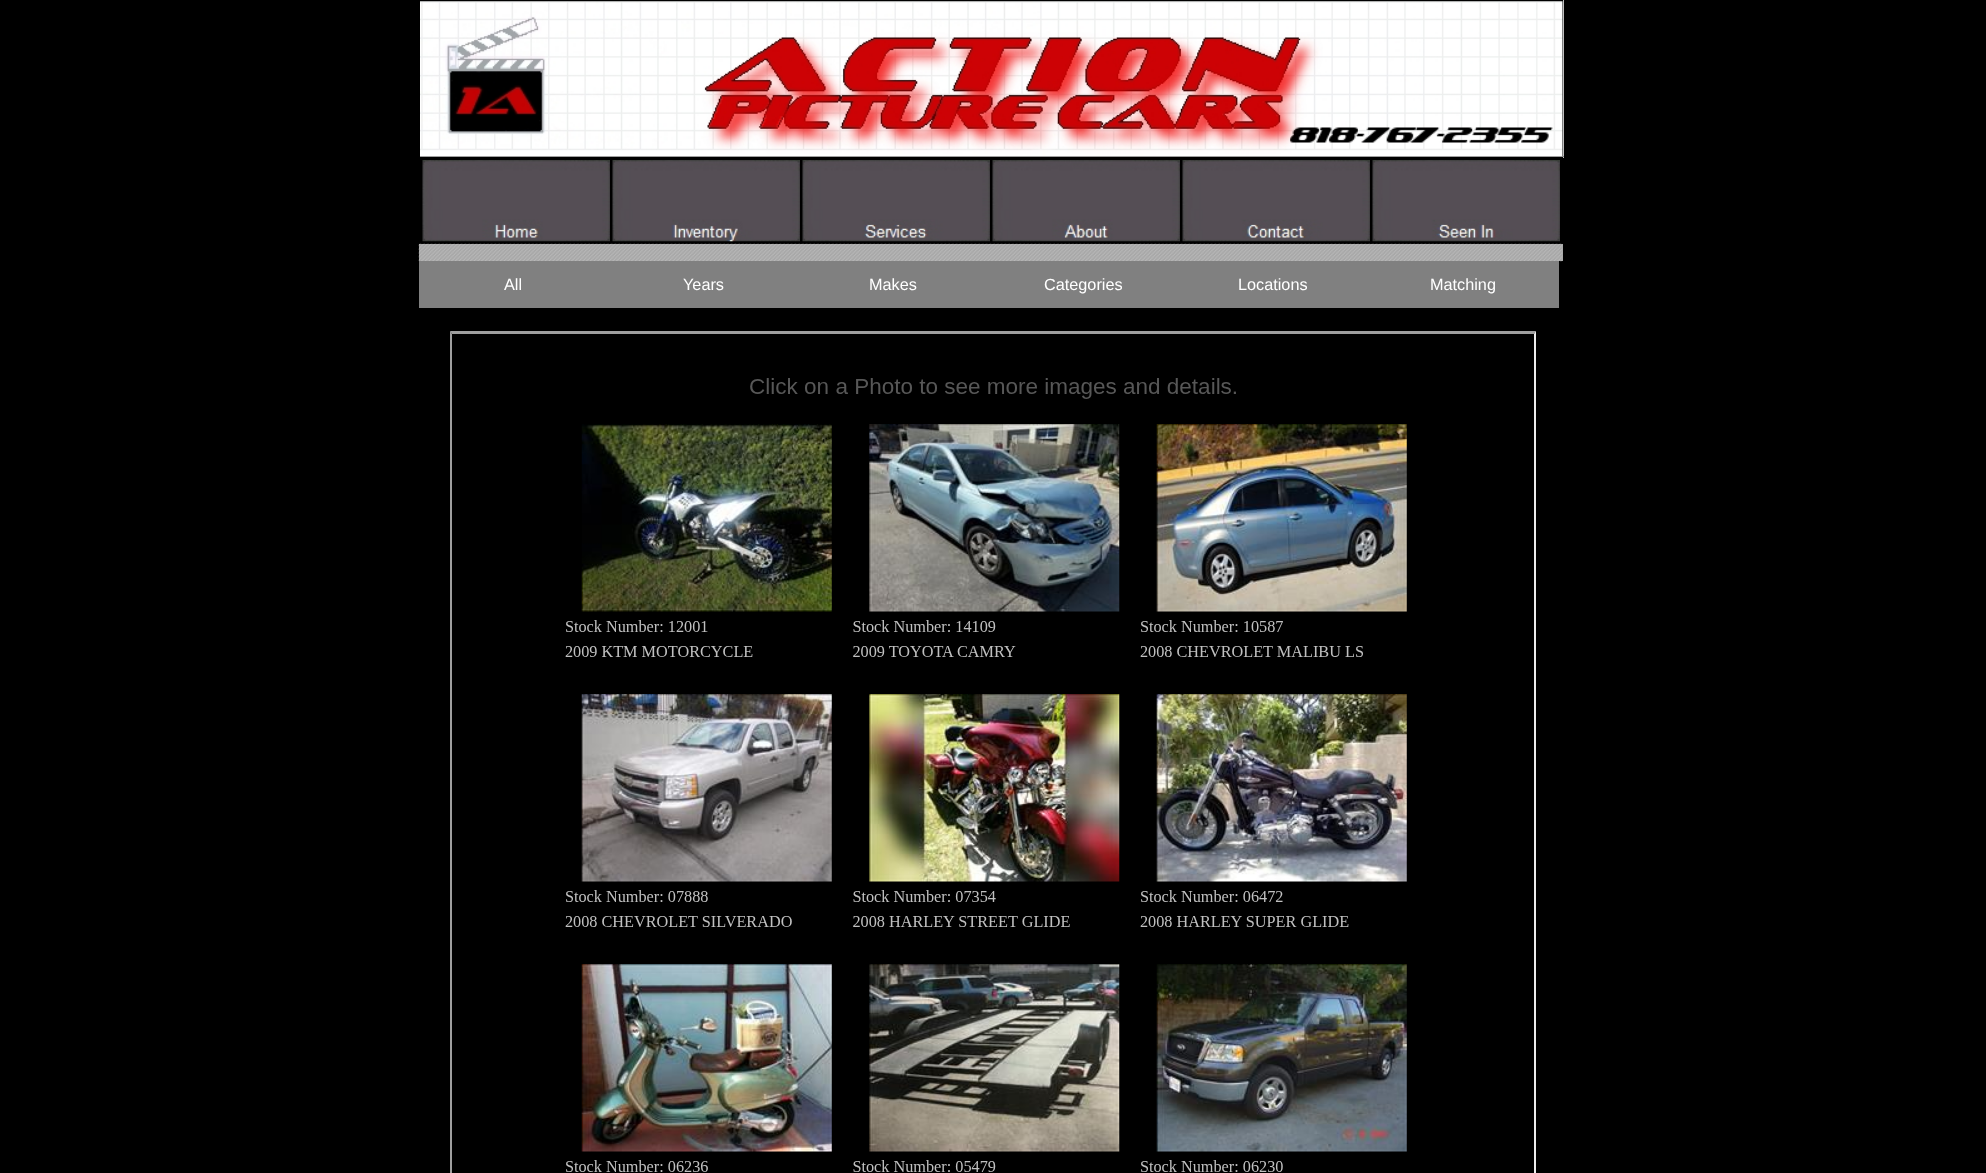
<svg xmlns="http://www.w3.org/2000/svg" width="1986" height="1173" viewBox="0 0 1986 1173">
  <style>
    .t1 { font: 16.25px Liberation Sans; fill: #fff; }
  </style>
  <rect width="100%" height="100%" fill="#000"/>
  <rect x="1563" y="0" width="1" height="158" fill="#c0c0c0"/>
  <rect x="419" y="156" width="1145" height="1" fill="#808080"/>
  <image x="420" y="1" width="1143" height="156" href="images/1.png"/>
  <rect x="419" y="156" width="1" height="2" fill="#000"/>
  <image x="422" y="160" width="188" height="82" href="images/2.png"/>
  <image x="612" y="160" width="188" height="82" href="images/3.png"/>
  <image x="802" y="160" width="188" height="82" href="images/4.png"/>
  <image x="992" y="160" width="188" height="82" href="images/5.png"/>
  <image x="1182" y="160" width="188" height="82" href="images/6.png"/>
  <image x="1372" y="160" width="188" height="82" href="images/7.png"/>
  <rect x="419" y="244" width="1144" height="17" fill="#a7a7a7"/>
  <image x="418" y="243" width="1145" height="19" href="images/8.png"/>
  <rect x="419" y="261" width="1140" height="47" fill="#808080"/>
  <text x="504" y="290" class="t1">All</text>
  <text x="683" y="290" class="t1">Years</text>
  <text x="869" y="290" class="t1">Makes</text>
  <text x="1044" y="290" class="t1">Categories</text>
  <text x="1238" y="290" class="t1">Locations</text>
  <text x="1430" y="290" class="t1">Matching</text>
  <path d="M450 331H1536L1534 334H452Z" fill="#9f9f9f"/>
  <path d="M450 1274V331L452 334V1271Z" fill="#9f9f9f"/>
  <image x="565" y="378" width="842" height="794" href="images/9.png"/>
  <path d="M1536 331V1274L1534 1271V334Z" fill="#eee"/>
</svg>
